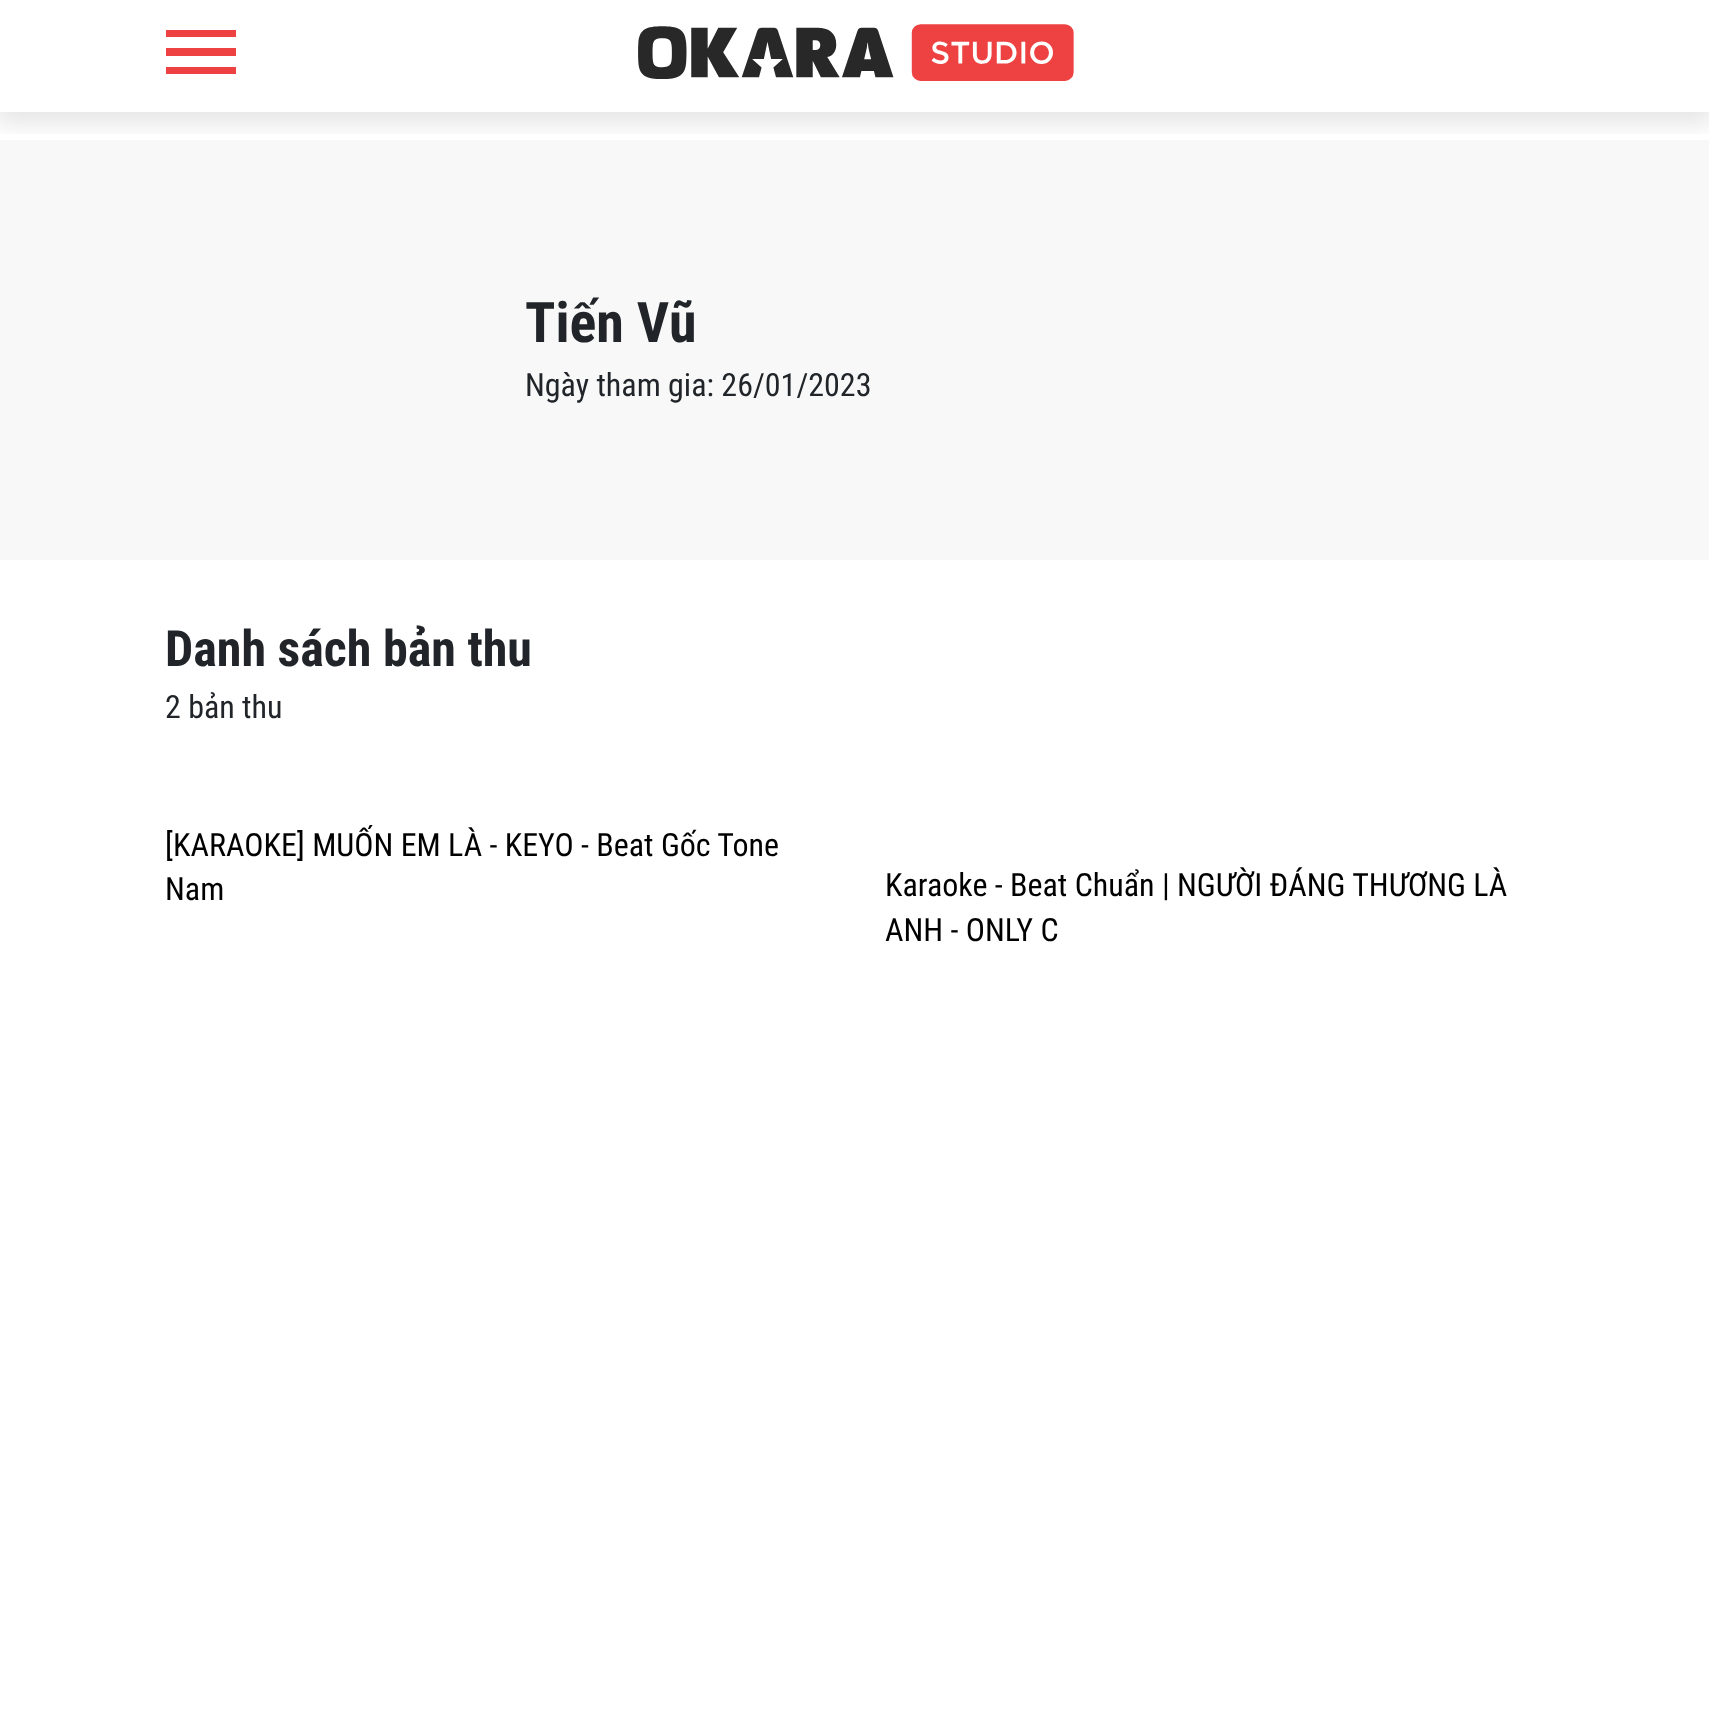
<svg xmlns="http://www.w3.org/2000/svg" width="1709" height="1720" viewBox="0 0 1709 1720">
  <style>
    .t1 { font: bold 56px Roboto Condensed; fill: #212529; }
    .t2 { font: 32px Roboto Condensed; fill: #212529; }
    .t3 { font: bold 50px Roboto Condensed; fill: #212529; }
    .t4 { font: 32px Roboto Condensed; fill: #000; }
  </style>
  <defs>
    <clipPath id="clip1"><rect x="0" y="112" width="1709" height="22"/></clipPath>
    <clipPath id="clip2"><rect x="166" y="30" width="70" height="44"/></clipPath>
  </defs>
  <rect width="100%" height="100%" fill="#fff"/>
  <rect x="0" y="140" width="1709" height="420" fill="#f8f8f8"/>
  <g clip-path="url(#clip1)">
    <rect x="-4" y="4" width="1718" height="120" fill="#0000001a" filter="blur(12px)"/>
  </g>
  <g clip-path="url(#clip2)">
    <path d="M166 48H241V53C241 57 241 56 237 56H166Z" fill="#ee4242"/>
  </g>
  <rect x="166" y="30" width="70" height="7" fill="#ee4242"/>
  <g clip-path="url(#clip2)">
    <path d="M166 67H240C241 67 241 67 241 68C241 74 243 74 236 74H166Z" fill="#ee4242"/>
  </g>
  <image x="638" y="24" width="436" height="57" href="images/1.png"/>
  <text x="525" y="342" class="t1">Tiến Vũ</text>
  <text x="525" y="396" class="t2">Ngày tham gia: 26/01/2023</text>
  <text x="165" y="666" class="t3">Danh sách bản thu</text>
  <text x="165" y="718" class="t2">2 bản thu</text>
  <text x="165" y="856" class="t4">[KARAOKE] MUỐN EM LÀ - KEYO - Beat Gốc Tone</text>
  <text x="165" y="900" class="t4">Nam</text>
  <text x="885" y="896" class="t4">Karaoke - Beat Chuẩn | NGƯỜI ĐÁNG THƯƠNG LÀ</text>
  <text x="885" y="941" class="t4">ANH - ONLY C</text>
</svg>
